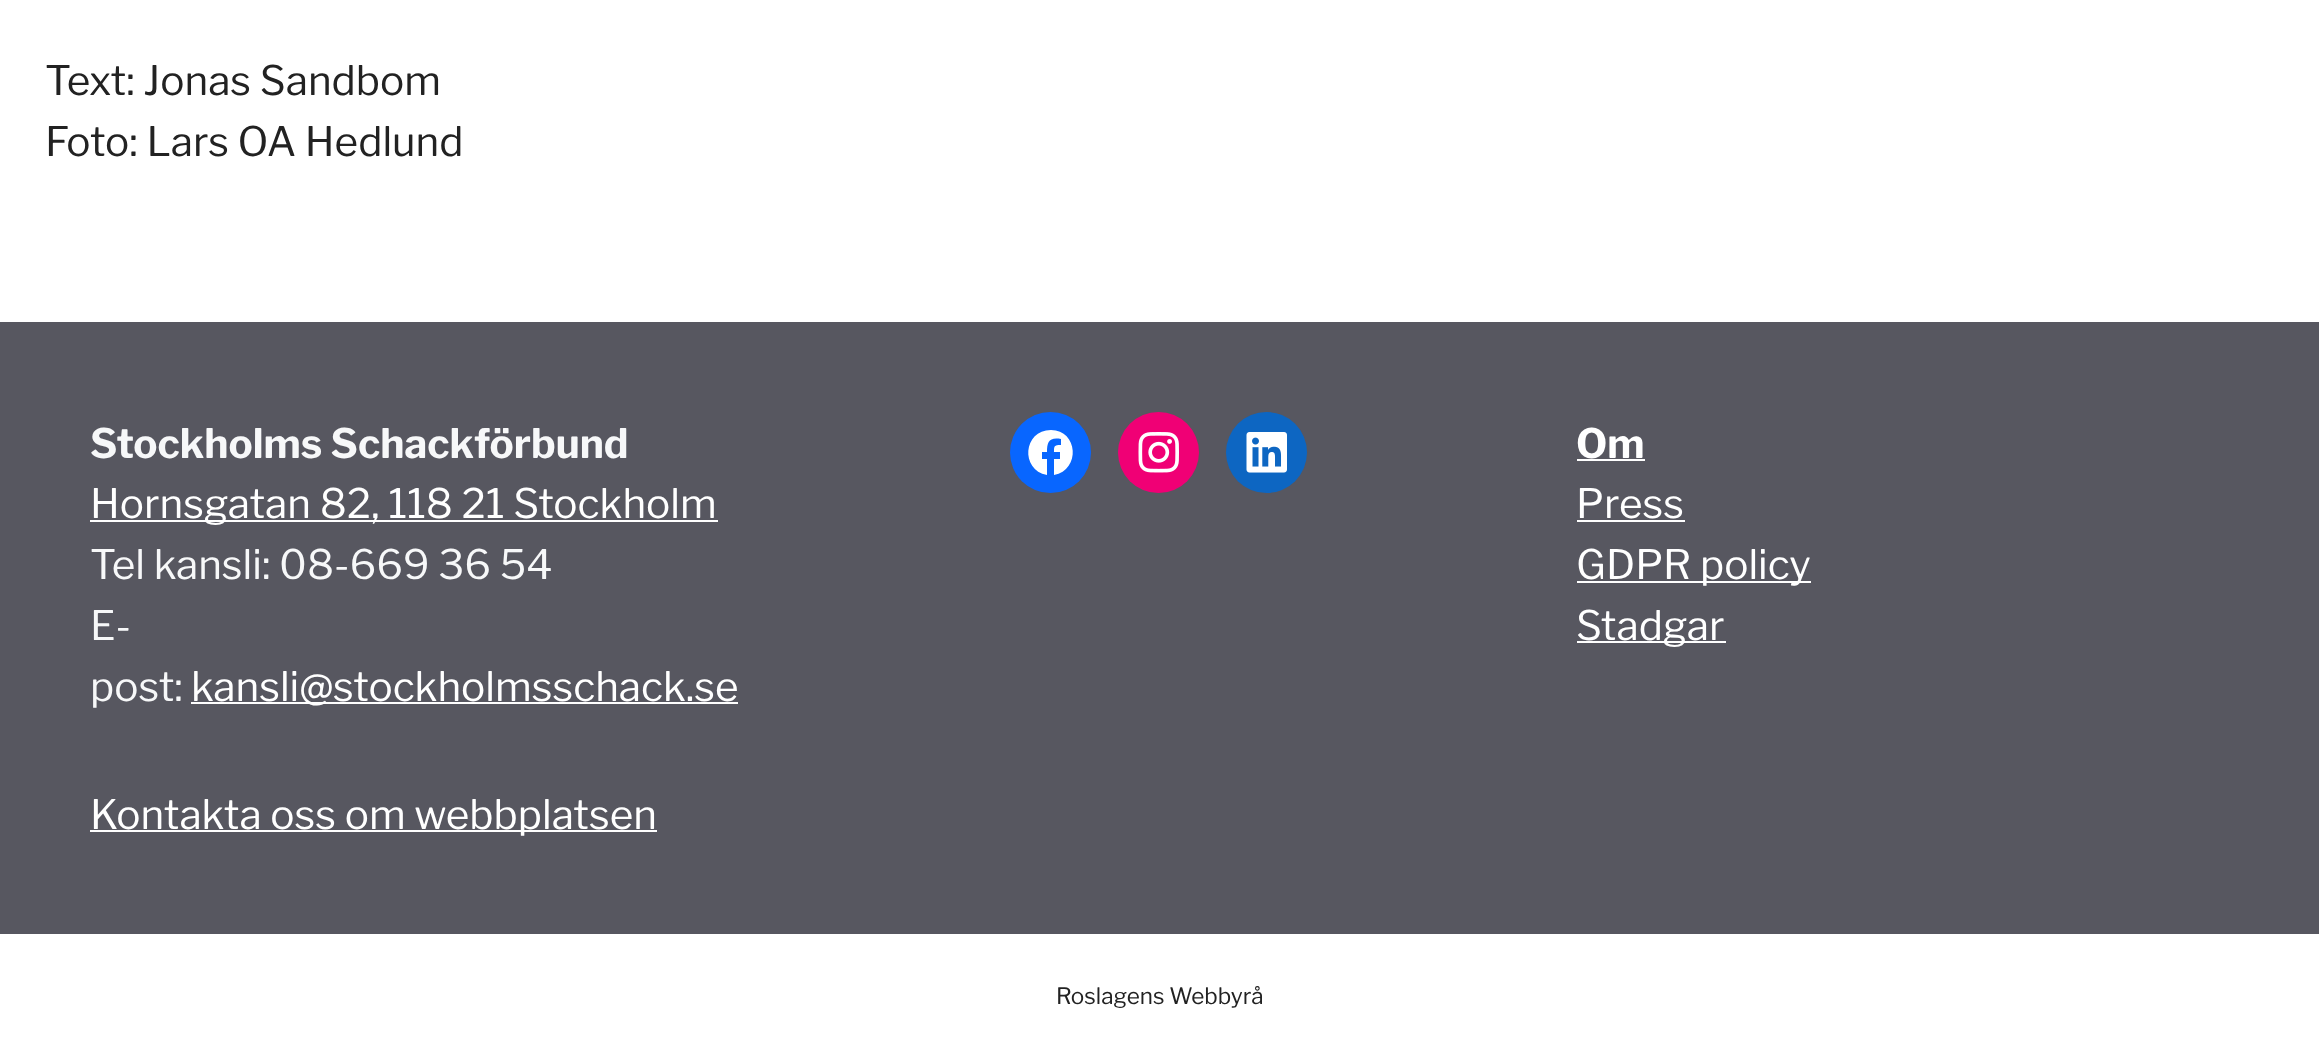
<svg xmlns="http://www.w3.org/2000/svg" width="2319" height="1057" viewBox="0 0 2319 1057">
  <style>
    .t1 { font: 40.5px Libre Franklin; fill: #222; }
    .t2 { font: bold 40.5px Libre Franklin; fill: #f7f8f9; }
    .t3 { font: 40.5px Libre Franklin; fill: #fff; }
    .t4 { font: 40.5px Libre Franklin; fill: #f7f8f9; }
    .t5 { font: bold 40.5px Libre Franklin; fill: #fff; }
    .t6 { font: 22.5px Libre Franklin; fill: #222; }
  </style>
  <rect width="100%" height="100%" fill="#fff"/>
  <text x="45" y="95" class="t1">Text: Jonas Sandbom</text>
  <text x="45" y="156" class="t1">Foto: Lars OA Hedlund</text>
  <rect x="0" y="322" width="2319" height="612" fill="#575760"/>
  <text x="90" y="458" class="t2">Stockholms Schackförbund</text>
  <rect x="90" y="520" width="628" height="2" fill="#fff"/>
  <text x="90" y="518" class="t3">Hornsgatan 82, 118 21 Stockholm</text>
  <text x="90" y="579" class="t4">Tel kansli: 08-669 36 54</text>
  <text x="90" y="640" class="t4">E-</text>
  <text x="90" y="701" class="t4">post:</text>
  <rect x="191" y="702" width="547" height="2" fill="#fff"/>
  <text x="191" y="701" class="t3">kansli@stockholmsschack.se</text>
  <rect x="90" y="830" width="567" height="2" fill="#fff"/>
  <text x="90" y="829" class="t3">Kontakta oss om webbplatsen</text>
  <circle cx="1050.5" cy="452.5" r="40.5" fill="#0866ff"/>
  <path d="M1051 430C1023 430 1020 470 1047 475V459H1042V452H1047C1047 442 1049 437 1061 439V445C1054 445 1054 446 1054 452H1060V459H1054V475C1081 470 1078 430 1051 430Z" fill="#fff"/>
  <circle cx="1158.5" cy="452.5" r="40.5" fill="#f00075"/>
  <image x="1138" y="432" width="41" height="41" href="images/1.png"/>
  <circle cx="1266.5" cy="452.5" r="40.5" fill="#0d66c2"/>
  <image x="1246" y="432" width="41" height="41" href="images/2.png"/>
  <text x="1576" y="458" class="t5">Om</text>
  <rect x="1577" y="459" width="68" height="2" fill="#fff"/>
  <text x="1576" y="518" class="t3">Press</text>
  <rect x="1577" y="520" width="108" height="2" fill="#fff"/>
  <rect x="1577" y="581" width="234" height="2" fill="#fff"/>
  <text x="1576" y="579" class="t3">GDPR policy</text>
  <rect x="1577" y="641" width="149" height="2" fill="#fff"/>
  <text x="1576" y="640" class="t3">Stadgar</text>
  <text x="1056" y="1004" class="t6">Roslagens Webbyrå</text>
</svg>
